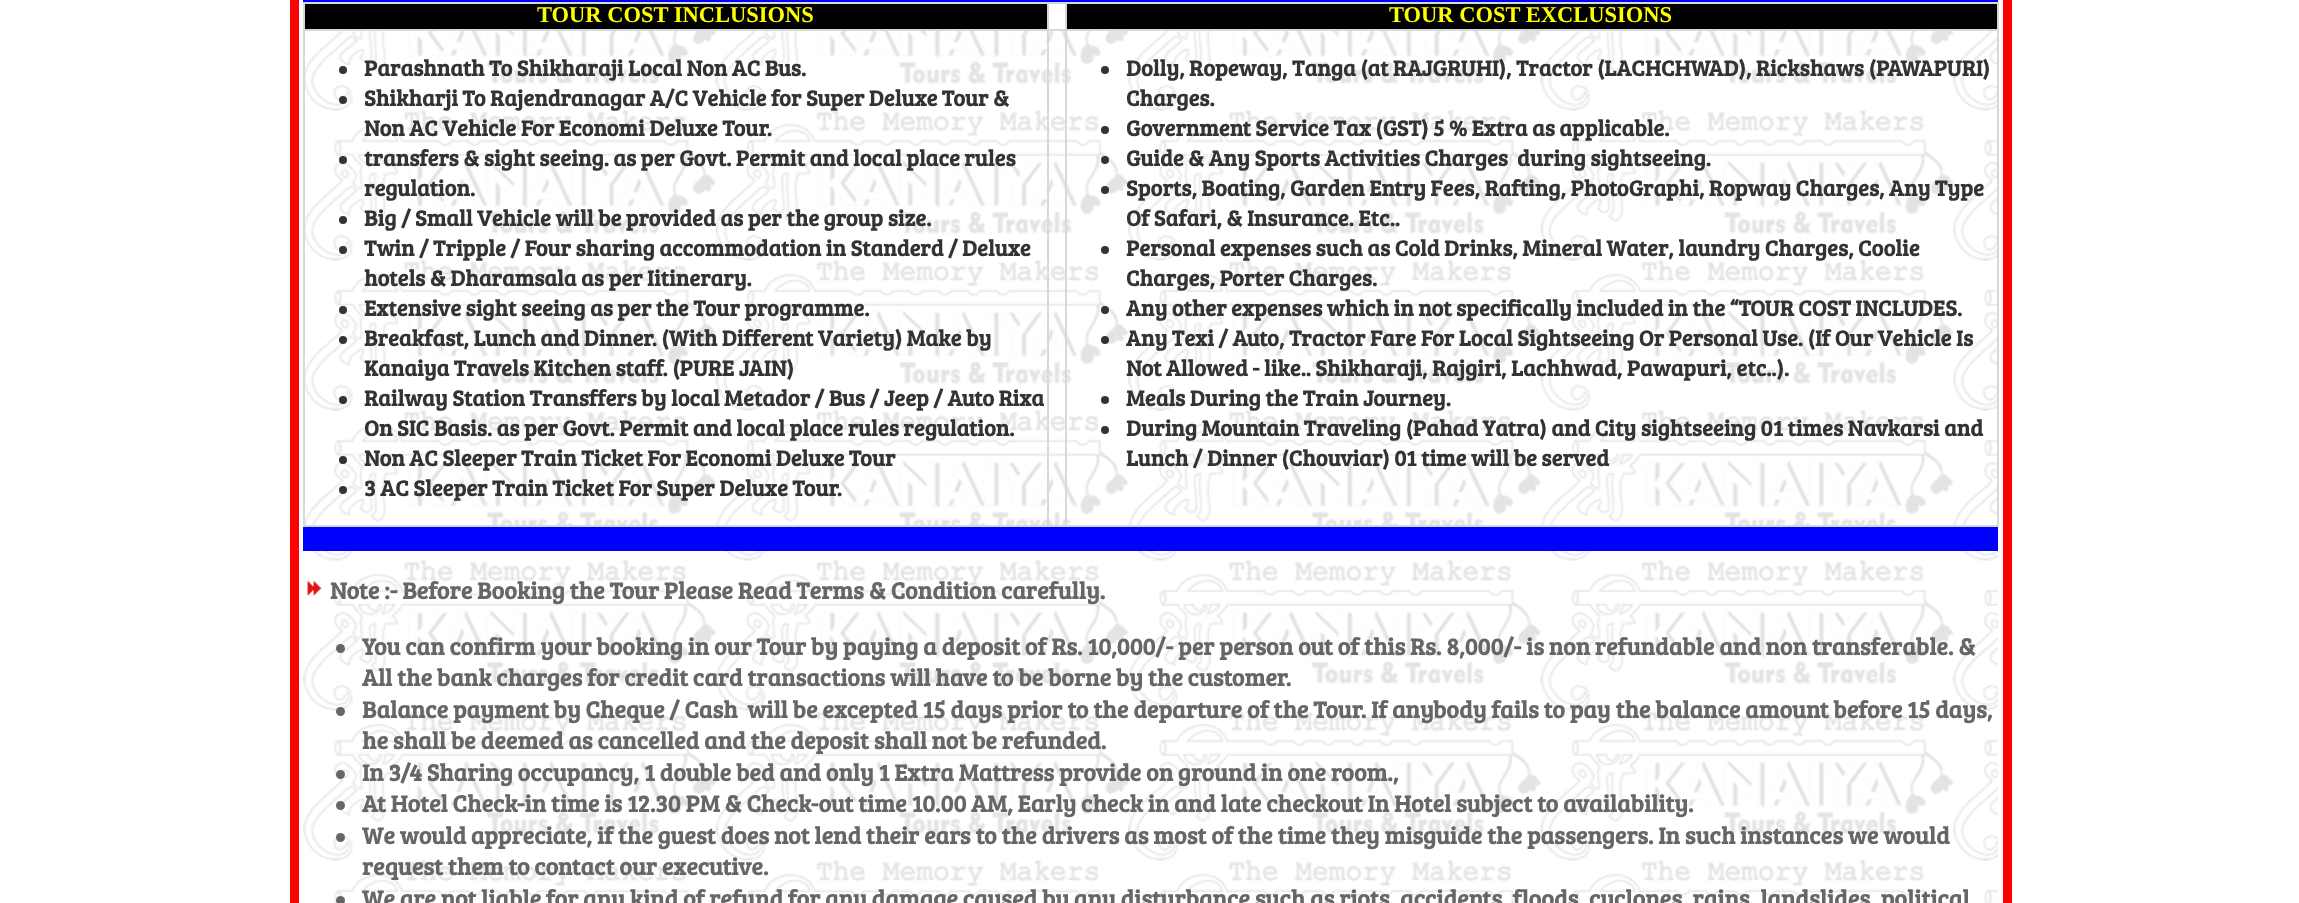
<svg xmlns="http://www.w3.org/2000/svg" width="2299" height="903" viewBox="0 0 2299 903">
  <style>
    .t1 { font: bold 22.5px Liberation Serif; fill: #ff0; }
    .t2 { font: bold 22.5px Bree Serif; fill: #333; }
    .t3 { font: bold 24px Bree Serif; fill: #666; }
  </style>
  <rect width="100%" height="100%" fill="#fff"/>
  <rect x="290" y="0" width="9" height="903" fill="#f00"/>
  <image x="303" y="31" width="1695" height="872" href="images/1.png"/>
  <rect x="303" y="0" width="1695" height="2" fill="#00f"/>
  <rect x="303" y="2" width="1695" height="2" fill="#d8d8d8"/>
  <rect x="1997" y="2" width="2" height="525" fill="#d8d8d8"/>
  <rect x="303" y="525" width="1695" height="2" fill="#d8d8d8"/>
  <rect x="303" y="2" width="2" height="525" fill="#d8d8d8"/>
  <rect x="305" y="4" width="1692" height="25" fill="#000"/>
  <text x="537" y="22" class="t1">TOUR COST INCLUSIONS</text>
  <rect x="1049" y="4" width="16" height="25" fill="#fff"/>
  <rect x="1065" y="29" width="933" height="2" fill="#d8d8d8"/>
  <rect x="1065" y="29" width="2" height="498" fill="#d8d8d8"/>
  <rect x="1047" y="29" width="20" height="2" fill="#d8d8d8"/>
  <rect x="1047" y="29" width="2" height="498" fill="#d8d8d8"/>
  <rect x="303" y="29" width="746" height="2" fill="#d8d8d8"/>
  <rect x="1047" y="2" width="2" height="28" fill="#d8d8d8"/>
  <rect x="1065" y="2" width="2" height="28" fill="#d8d8d8"/>
  <text x="1389" y="22" class="t1">TOUR COST EXCLUSIONS</text>
  <circle cx="343" cy="70" r="4" fill="#333"/>
  <text x="364" y="76" class="t2">Parashnath To Shikharaji Local Non AC Bus.</text>
  <circle cx="343" cy="100" r="4" fill="#333"/>
  <text x="364" y="106" class="t2">Shikharji To Rajendranagar A/C Vehicle for Super Deluxe Tour &amp;</text>
  <text x="364" y="136" class="t2">Non AC Vehicle For Economi Deluxe Tour.</text>
  <circle cx="343" cy="160" r="4" fill="#333"/>
  <text x="364" y="166" class="t2">transfers &amp; sight seeing. as per Govt. Permit and local place rules</text>
  <text x="364" y="196" class="t2">regulation.</text>
  <circle cx="343" cy="220" r="4" fill="#333"/>
  <text x="364" y="226" class="t2">Big / Small Vehicle will be provided as per the group size.</text>
  <circle cx="343" cy="250" r="4" fill="#333"/>
  <text x="364" y="256" class="t2">Twin / Tripple / Four sharing accommodation in Standerd / Deluxe</text>
  <text x="364" y="286" class="t2">hotels &amp; Dharamsala as per Iitinerary.</text>
  <circle cx="343" cy="310" r="4" fill="#333"/>
  <text x="364" y="316" class="t2">Extensive sight seeing as per the Tour programme.</text>
  <circle cx="343" cy="340" r="4" fill="#333"/>
  <text x="364" y="346" class="t2">Breakfast, Lunch and Dinner. (With Different Variety) Make by</text>
  <text x="364" y="376" class="t2">Kanaiya Travels Kitchen staff. (PURE JAIN)</text>
  <circle cx="343" cy="400" r="4" fill="#333"/>
  <text x="364" y="406" class="t2">Railway Station Transffers by local Metador / Bus / Jeep / Auto Rixa</text>
  <text x="364" y="436" class="t2">On SIC Basis. as per Govt. Permit and local place rules regulation.</text>
  <circle cx="343" cy="460" r="4" fill="#333"/>
  <text x="364" y="466" class="t2">Non AC Sleeper Train Ticket For Economi Deluxe Tour</text>
  <circle cx="343" cy="490" r="4" fill="#333"/>
  <text x="364" y="496" class="t2">3 AC Sleeper Train Ticket For Super Deluxe Tour.</text>
  <circle cx="1105" cy="70" r="4" fill="#333"/>
  <text x="1126" y="76" class="t2">Dolly, Ropeway, Tanga (at RAJGRUHI), Tractor (LACHCHWAD), Rickshaws (PAWAPURI)</text>
  <text x="1126" y="106" class="t2">Charges.</text>
  <circle cx="1105" cy="130" r="4" fill="#333"/>
  <text x="1126" y="136" class="t2">Government Service Tax (GST) 5 % Extra as applicable.</text>
  <circle cx="1105" cy="160" r="4" fill="#333"/>
  <text x="1126" y="166" class="t2" xml:space="preserve">Guide &amp; Any Sports Activities Charges  during sightseeing.</text>
  <circle cx="1105" cy="190" r="4" fill="#333"/>
  <text x="1126" y="196" class="t2">Sports, Boating, Garden Entry Fees, Rafting, PhotoGraphi, Ropway Charges, Any Type</text>
  <text x="1126" y="226" class="t2">Of Safari, &amp; Insurance. Etc..</text>
  <circle cx="1105" cy="250" r="4" fill="#333"/>
  <text x="1126" y="256" class="t2">Personal expenses such as Cold Drinks, Mineral Water, laundry Charges, Coolie</text>
  <text x="1126" y="286" class="t2">Charges, Porter Charges.</text>
  <circle cx="1105" cy="310" r="4" fill="#333"/>
  <text x="1126" y="316" class="t2">Any other expenses which in not specifically included in the “TOUR COST INCLUDES.</text>
  <circle cx="1105" cy="340" r="4" fill="#333"/>
  <text x="1126" y="346" class="t2">Any Texi / Auto, Tractor Fare For Local Sightseeing Or Personal Use. (If Our Vehicle Is</text>
  <text x="1126" y="376" class="t2">Not Allowed - like.. Shikharaji, Rajgiri, Lachhwad, Pawapuri, etc..).</text>
  <circle cx="1105" cy="400" r="4" fill="#333"/>
  <text x="1126" y="406" class="t2">Meals During the Train Journey.</text>
  <circle cx="1105" cy="430" r="4" fill="#333"/>
  <text x="1126" y="436" class="t2">During Mountain Traveling (Pahad Yatra) and City sightseeing 01 times Navkarsi and</text>
  <text x="1126" y="466" class="t2">Lunch / Dinner (Chouviar) 01 time will be served</text>
  <rect x="303" y="527" width="1695" height="24" fill="#00f"/>
  <image x="307" y="581" width="15" height="15" href="images/2.png"/>
  <text x="330" y="599" class="t3">Note :- Before Booking the Tour Please Read Terms &amp; Condition carefully.</text>
  <circle cx="340.5" cy="648.5" r="4.5" fill="#666"/>
  <text x="362" y="655" class="t3">You can confirm your booking in our Tour by paying a deposit of Rs. 10,000/- per person out of this Rs. 8,000/- is non refundable and non transferable. &amp;</text>
  <text x="362" y="686" class="t3">All the bank charges for credit card transactions will have to be borne by the customer.</text>
  <circle cx="340.5" cy="711.5" r="4.5" fill="#666"/>
  <text x="362" y="718" class="t3" xml:space="preserve">Balance payment by Cheque / Cash  will be excepted 15 days prior to the departure of the Tour. If anybody fails to pay the balance amount before 15 days,</text>
  <text x="362" y="749" class="t3">he shall be deemed as cancelled and the deposit shall not be refunded.</text>
  <circle cx="340.5" cy="774.5" r="4.5" fill="#666"/>
  <text x="362" y="781" class="t3">In 3/4 Sharing occupancy, 1 double bed and only 1 Extra Mattress provide on ground in one room.,</text>
  <circle cx="340.5" cy="805.5" r="4.5" fill="#666"/>
  <text x="362" y="812" class="t3">At Hotel Check-in time is 12.30 PM &amp; Check-out time 10.00 AM, Early check in and late checkout In Hotel subject to availability.</text>
  <circle cx="340.5" cy="837.5" r="4.5" fill="#666"/>
  <text x="362" y="844" class="t3">We would appreciate, if the guest does not lend their ears to the drivers as most of the time they misguide the passengers. In such instances we would</text>
  <text x="362" y="875" class="t3">request them to contact our executive.</text>
  <circle cx="340.5" cy="900.5" r="4.5" fill="#666"/>
  <text x="362" y="907" class="t3">We are not liable for any kind of refund for any damage caused by any disturbance such as riots, accidents, floods, cyclones, rains, landslides, political</text>
  <rect x="2003" y="0" width="9" height="903" fill="#f00"/>
</svg>
